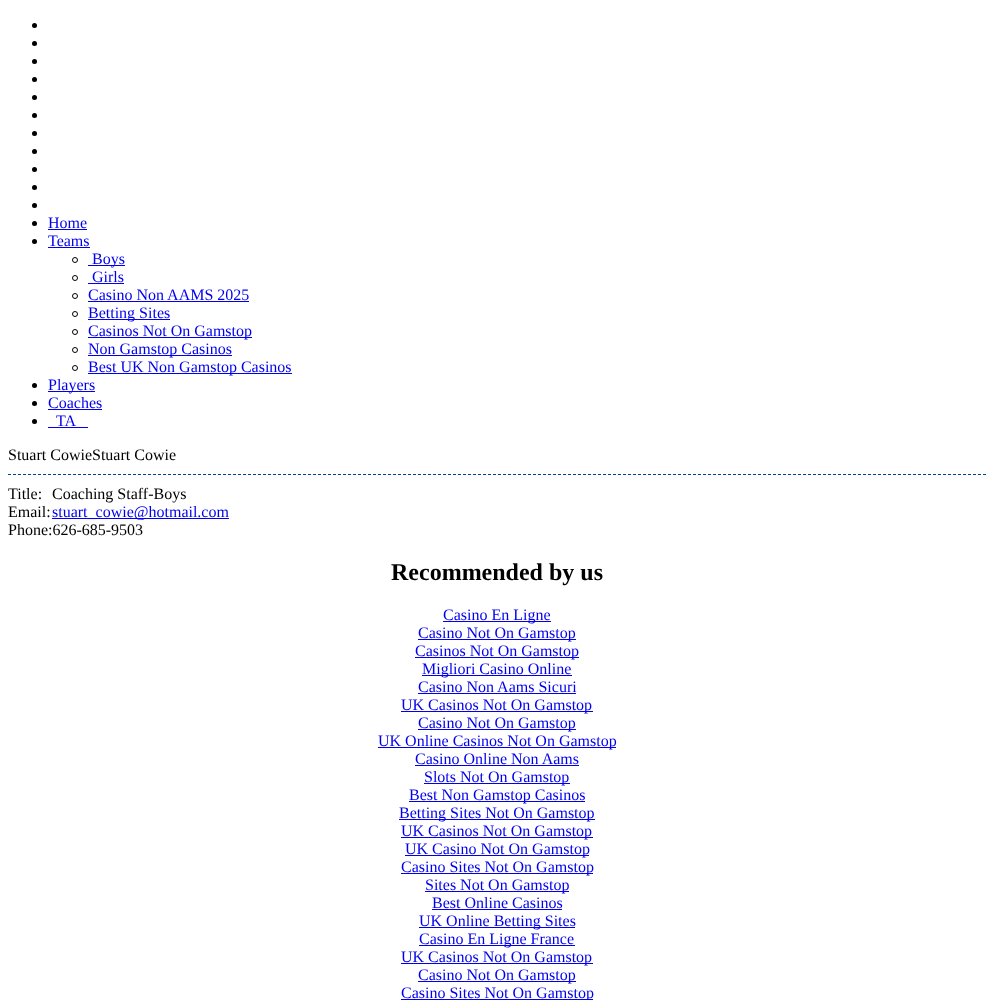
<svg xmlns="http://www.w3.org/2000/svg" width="994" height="1000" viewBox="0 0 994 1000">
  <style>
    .t1 { font: 16px Liberation Serif; fill: #00e; }
    .t2 { font: 16px Liberation Serif; fill: #000; }
    .t3 { font: bold 24px Liberation Serif; fill: #000; }
  </style>
  <rect width="100%" height="100%" fill="#fff"/>
  <circle cx="34.5" cy="25.5" r="2.5" fill="#000"/>
  <circle cx="34.5" cy="43.5" r="2.5" fill="#000"/>
  <circle cx="34.5" cy="61.5" r="2.5" fill="#000"/>
  <circle cx="34.5" cy="79.5" r="2.5" fill="#000"/>
  <circle cx="34.5" cy="97.5" r="2.5" fill="#000"/>
  <circle cx="34.5" cy="115.5" r="2.5" fill="#000"/>
  <circle cx="34.5" cy="133.5" r="2.5" fill="#000"/>
  <circle cx="34.5" cy="151.5" r="2.5" fill="#000"/>
  <circle cx="34.5" cy="169.5" r="2.5" fill="#000"/>
  <circle cx="34.5" cy="187.5" r="2.5" fill="#000"/>
  <circle cx="34.5" cy="205.5" r="2.5" fill="#000"/>
  <circle cx="34.5" cy="223.5" r="2.5" fill="#000"/>
  <text x="48" y="228" class="t1">Home</text>
  <rect x="48" y="229" width="39" height="1" fill="#00e"/>
  <circle cx="34.5" cy="241.5" r="2.5" fill="#000"/>
  <text x="48" y="246" class="t1">Teams</text>
  <rect x="48" y="247" width="42" height="1" fill="#00e"/>
  <circle cx="75" cy="260" r="2.5" fill="none" stroke="#000"/>
  <rect x="88" y="265" width="37" height="1" fill="#00e"/>
  <text x="92" y="264" class="t1">Boys</text>
  <circle cx="75" cy="278" r="2.5" fill="none" stroke="#000"/>
  <text x="92" y="282" class="t1">Girls</text>
  <rect x="88" y="283" width="36" height="1" fill="#00e"/>
  <circle cx="75" cy="296" r="2.5" fill="none" stroke="#000"/>
  <text x="88" y="300" class="t1">Casino Non AAMS 2025</text>
  <rect x="88" y="301" width="161" height="1" fill="#00e"/>
  <circle cx="75" cy="314" r="2.5" fill="none" stroke="#000"/>
  <rect x="88" y="319" width="82" height="1" fill="#00e"/>
  <text x="88" y="318" class="t1">Betting Sites</text>
  <circle cx="75" cy="332" r="2.5" fill="none" stroke="#000"/>
  <rect x="88" y="337" width="164" height="1" fill="#00e"/>
  <text x="88" y="336" class="t1">Casinos Not On Gamstop</text>
  <circle cx="75" cy="350" r="2.5" fill="none" stroke="#000"/>
  <rect x="88" y="355" width="144" height="1" fill="#00e"/>
  <text x="88" y="354" class="t1">Non Gamstop Casinos</text>
  <circle cx="75" cy="368" r="2.5" fill="none" stroke="#000"/>
  <rect x="88" y="373" width="204" height="1" fill="#00e"/>
  <text x="88" y="372" class="t1">Best UK Non Gamstop Casinos</text>
  <circle cx="34.5" cy="385.5" r="2.5" fill="#000"/>
  <rect x="48" y="391" width="47" height="1" fill="#00e"/>
  <text x="48" y="390" class="t1">Players</text>
  <circle cx="34.5" cy="403.5" r="2.5" fill="#000"/>
  <text x="48" y="408" class="t1">Coaches</text>
  <rect x="48" y="409" width="54" height="1" fill="#00e"/>
  <circle cx="34.5" cy="421.5" r="2.5" fill="#000"/>
  <text x="56" y="426" class="t1">TA</text>
  <rect x="48" y="427" width="40" height="1" fill="#00e"/>
  <text x="8" y="460" class="t2">Stuart CowieStuart Cowie</text>
  <path d="M8 474.5H986" fill="none" stroke="#004590" stroke-dasharray="3 2"/>
  <text x="8" y="499" class="t2">Title:</text>
  <text x="52" y="499" class="t2">Coaching Staff-Boys</text>
  <text x="8" y="517" class="t2">Email:</text>
  <rect x="52" y="518" width="177" height="1" fill="#00e"/>
  <text x="52" y="517" class="t1">stuart_cowie@hotmail.com</text>
  <text x="8" y="535" class="t2">Phone:626-685-9503</text>
  <text x="391" y="580" class="t3">Recommended by us</text>
  <rect x="443" y="621" width="108" height="1" fill="#00e"/>
  <text x="443" y="620" class="t1">Casino En Ligne</text>
  <rect x="418" y="639" width="158" height="1" fill="#00e"/>
  <text x="418" y="638" class="t1">Casino Not On Gamstop</text>
  <rect x="415" y="657" width="164" height="1" fill="#00e"/>
  <text x="415" y="656" class="t1">Casinos Not On Gamstop</text>
  <rect x="422" y="675" width="150" height="1" fill="#00e"/>
  <text x="422" y="674" class="t1">Migliori Casino Online</text>
  <text x="418" y="692" class="t1">Casino Non Aams Sicuri</text>
  <rect x="418" y="693" width="158" height="1" fill="#00e"/>
  <rect x="401" y="711" width="192" height="1" fill="#00e"/>
  <text x="401" y="710" class="t1">UK Casinos Not On Gamstop</text>
  <rect x="418" y="729" width="158" height="1" fill="#00e"/>
  <text x="418" y="728" class="t1">Casino Not On Gamstop</text>
  <rect x="378" y="747" width="238" height="1" fill="#00e"/>
  <text x="378" y="746" class="t1">UK Online Casinos Not On Gamstop</text>
  <text x="415" y="764" class="t1">Casino Online Non Aams</text>
  <rect x="415" y="765" width="164" height="1" fill="#00e"/>
  <rect x="424" y="783" width="146" height="1" fill="#00e"/>
  <text x="424" y="782" class="t1">Slots Not On Gamstop</text>
  <rect x="409" y="801" width="176" height="1" fill="#00e"/>
  <text x="409" y="800" class="t1">Best Non Gamstop Casinos</text>
  <rect x="399" y="819" width="196" height="1" fill="#00e"/>
  <text x="399" y="818" class="t1">Betting Sites Not On Gamstop</text>
  <rect x="401" y="837" width="192" height="1" fill="#00e"/>
  <text x="401" y="836" class="t1">UK Casinos Not On Gamstop</text>
  <rect x="405" y="855" width="184" height="1" fill="#00e"/>
  <text x="405" y="854" class="t1">UK Casino Not On Gamstop</text>
  <rect x="401" y="873" width="192" height="1" fill="#00e"/>
  <text x="401" y="872" class="t1">Casino Sites Not On Gamstop</text>
  <rect x="425" y="891" width="144" height="1" fill="#00e"/>
  <text x="425" y="890" class="t1">Sites Not On Gamstop</text>
  <text x="432" y="908" class="t1">Best Online Casinos</text>
  <rect x="432" y="909" width="130" height="1" fill="#00e"/>
  <rect x="419" y="927" width="156" height="1" fill="#00e"/>
  <text x="419" y="926" class="t1">UK Online Betting Sites</text>
  <rect x="419" y="945" width="156" height="1" fill="#00e"/>
  <text x="419" y="944" class="t1">Casino En Ligne France</text>
  <rect x="401" y="963" width="192" height="1" fill="#00e"/>
  <text x="401" y="962" class="t1">UK Casinos Not On Gamstop</text>
  <rect x="418" y="981" width="158" height="1" fill="#00e"/>
  <text x="418" y="980" class="t1">Casino Not On Gamstop</text>
  <rect x="401" y="999" width="192" height="1" fill="#00e"/>
  <text x="401" y="998" class="t1">Casino Sites Not On Gamstop</text>
</svg>
